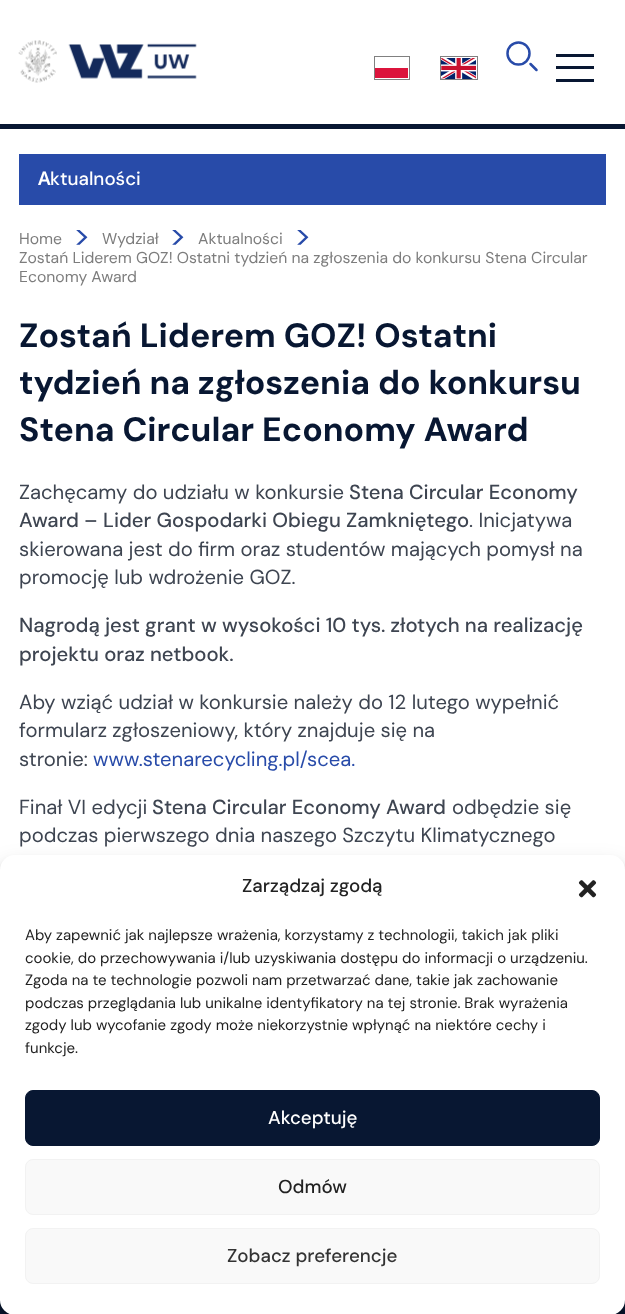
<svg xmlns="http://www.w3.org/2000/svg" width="625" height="1314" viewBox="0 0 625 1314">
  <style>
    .t1 { font: 600 18.75px Noto Sans; fill: #fff; }
    .t2 { font: 500 18.75px DM Sans; fill: #fff; }
    .t3 { font: 15.75px DM Sans; fill: #7d7d7d; }
    .t4 { font: 32px DM Sans; fill: #284ba9; }
    .t5 { font: bold 33.75px DM Sans; fill: #081732; }
    .t6 { font: 20.25px DM Sans; fill: #3e4551; }
    .t7 { font: 500 20.25px DM Sans; fill: #3e4551; }
    .t8 { font: 20.25px DM Sans; fill: #284ba9; }
    .t9 { font: 500 18.75px DM Sans; fill: #222; }
    .t10 { font: 15px DM Sans; fill: #222; }
    .t11 { font: 500 18.75px DM Sans; fill: #333; }
  </style>
  <rect width="100%" height="100%" fill="#081732"/>
  <rect x="0" y="0" width="625" height="124" fill="#fff"/>
  <image x="18" y="40" width="179" height="43" href="images/1.png"/>
  <rect x="374.5" y="56.5" width="35" height="23" fill="none" stroke="#808080"/>
  <rect x="375" y="68" width="33" height="10" fill="#dc143c"/>
  <rect x="440.5" y="56.5" width="37" height="23" fill="none" stroke="#808080"/>
  <image x="441" y="58" width="35" height="21" href="images/2.png"/>
  <circle cx="518.5" cy="53.5" r="11" fill="none" stroke="#284ba9" stroke-width="2.5"/>
  <path d="M530.5 64L536.5 70" fill="none" stroke="#284ba9" stroke-width="2.5" stroke-linecap="round"/>
  <rect x="556" y="54" width="38" height="3" fill="#081732"/>
  <rect x="556" y="66" width="38" height="3" fill="#081732"/>
  <rect x="556" y="79" width="38" height="3" fill="#081732"/>
  <rect x="0" y="129" width="625" height="741" fill="#fff"/>
  <rect x="19" y="154" width="587" height="51" fill="#284ba9"/>
  <text x="38" y="185" class="t1">A</text>
  <text x="50" y="185" class="t2">ktualności</text>
  <text x="19" y="244" class="t3">Home</text>
  <text x="73" y="246" class="t4">&gt;</text>
  <text x="102" y="244" class="t3">Wydział</text>
  <text x="169" y="246" class="t4">&gt;</text>
  <text x="198" y="244" class="t3">Aktualności</text>
  <text x="294" y="246" class="t4">&gt;</text>
  <text x="19" y="263" class="t3">Zostań Liderem GOZ! Ostatni tydzień na zgłoszenia do konkursu Stena Circular</text>
  <text x="19" y="282" class="t3">Economy Award</text>
  <text x="19" y="347" class="t5">Zostań Liderem GOZ! Ostatni</text>
  <text x="19" y="394" class="t5">tydzień na zgłoszenia do konkursu</text>
  <text x="19" y="441" class="t5">Stena Circular Economy Award</text>
  <text x="19" y="499" class="t6">Zachęcamy do udziału w konkursie</text>
  <text x="349" y="499" class="t7">Stena Circular Economy</text>
  <text x="19" y="527" class="t7">Award – Lider Gospodarki Obiegu Zamkniętego</text>
  <text x="469" y="527" class="t6">. Inicjatywa</text>
  <text x="19" y="556" class="t6">skierowana jest do firm oraz studentów mających pomysł na</text>
  <text x="19" y="584" class="t6">promocję lub wdrożenie GOZ.</text>
  <text x="19" y="632" class="t7">Nagrodą jest grant w wysokości 10 tys. złotych na realizację</text>
  <text x="19" y="661" class="t7">projektu oraz netbook.</text>
  <text x="19" y="709" class="t6">Aby wziąć udział w konkursie należy do 12 lutego wypełnić</text>
  <text x="19" y="737" class="t6">formularz zgłoszeniowy, który znajduje się na</text>
  <text x="19" y="766" class="t6">stronie:</text>
  <text x="93" y="766" class="t8">www.stenarecycling.pl/scea.</text>
  <text x="19" y="814" class="t6">Finał VI edycji</text>
  <text x="152" y="814" class="t7">Stena Circular Economy Award</text>
  <text x="452" y="814" class="t6">odbędzie się</text>
  <text x="19" y="842" class="t6">podczas pierwszego dnia naszego Szczytu Klimatycznego</text>
  <rect x="0" y="863" width="625" height="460" rx="15" fill="#0000003b" filter="blur(4px)"/>
  <rect x="0" y="868" width="625" height="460" rx="15" fill="#00000030" filter="blur(12.5px)"/>
  <rect x="538" y="1223" width="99" height="75" rx="2.5" fill="#808080" filter="blur(3px)"/>
  <rect x="0" y="855" width="625" height="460" rx="15" fill="#fff"/>
  <text x="242" y="892" class="t9">Zarządzaj zgodą</text>
  <image x="578" y="880" width="19" height="18" href="images/3.png"/>
  <text x="25" y="940" class="t10">Aby zapewnić jak najlepsze wrażenia, korzystamy z technologii, takich jak pliki</text>
  <text x="25" y="963" class="t10">cookie, do przechowywania i/lub uzyskiwania dostępu do informacji o urządzeniu.</text>
  <text x="25" y="985" class="t10">Zgoda na te technologie pozwoli nam przetwarzać dane, takie jak zachowanie</text>
  <text x="25" y="1008" class="t10">podczas przeglądania lub unikalne identyfikatory na tej stronie. Brak wyrażenia</text>
  <text x="25" y="1030" class="t10">zgody lub wycofanie zgody może niekorzystnie wpłynąć na niektóre cechy i</text>
  <text x="25" y="1053" class="t10">funkcje.</text>
  <rect x="25.5" y="1090.5" width="574" height="55" rx="7.5" fill="#081732" stroke="#081732"/>
  <text x="268" y="1124" class="t2">Akceptuję</text>
  <rect x="25.5" y="1159.5" width="574" height="55" rx="7.5" fill="#f9f9f9" stroke="#f2f2f2"/>
  <text x="278" y="1193" class="t9">Odmów</text>
  <rect x="25.5" y="1228.5" width="574" height="55" rx="7.5" fill="#f9f9f9" stroke="#f2f2f2"/>
  <text x="227" y="1262" class="t11">Zobacz preferencje</text>
</svg>
